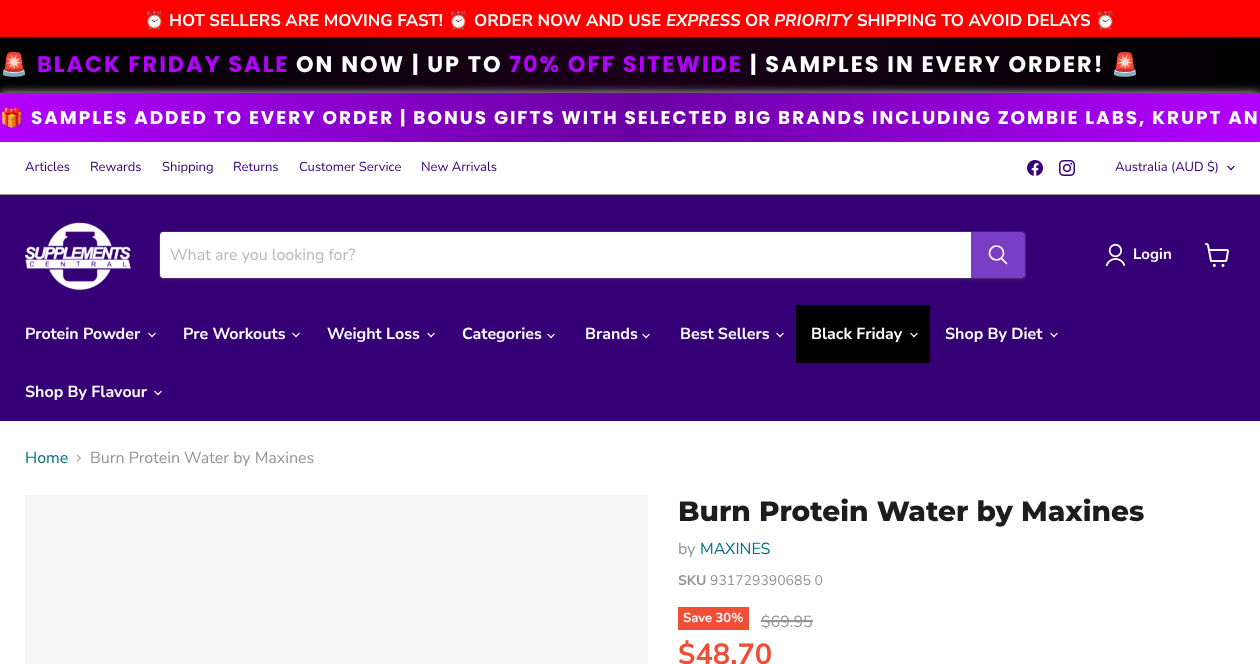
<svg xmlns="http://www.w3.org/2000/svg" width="1260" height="664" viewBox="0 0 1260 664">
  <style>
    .t1 { font: bold 16.75px Noto Color Emoji; fill: #fff; }
    .t2 { font: bold 16.75px Nunito Sans; fill: #fff; }
    .t3 { font: italic bold 16.75px Nunito Sans; fill: #fff; }
    .t4 { font: bold 22.4px Noto Color Emoji; letter-spacing: 2px; fill: #fff; }
    .t5 { font: bold 22.4px Poppins; letter-spacing: 2px; fill: #b300ff; }
    .t6 { font: bold 22.4px Poppins; letter-spacing: 2px; fill: #fff; }
    .t7 { font: bold 18.4px Noto Color Emoji; letter-spacing: 2px; fill: #fff; }
    .t8 { font: bold 18.4px Poppins; letter-spacing: 2px; fill: #fff; }
    .t9 { font: 13px Nunito Sans; fill: #350076; }
    .t10 { font: 16px Nunito Sans; fill: #b8b8b8; }
    .t11 { font: bold 15px Nunito Sans; fill: #fff; }
    .t12 { font: bold 16px Nunito Sans; fill: #fff; }
    .t13 { font: 16px Nunito Sans; fill: #046e82; }
    .t14 { font: 16px Nunito Sans; fill: #949494; }
    .t15 { font: 800 28px Montserrat; fill: #1d1d1d; }
    .t16 { font: bold 14px Nunito Sans; fill: #949494; }
    .t17 { font: 14px Nunito Sans; fill: #949494; }
    .t18 { font: bold 13px Nunito Sans; fill: #fff; }
    .t19 { font: bold 29px Nunito Sans; fill: #f04f36; }
  </style>
  <defs>
    <linearGradient id="g1" gradientUnits="userSpaceOnUse" x1="0" y1="65" x2="1260" y2="65"><stop offset="0" stop-color="#000"/><stop offset="0.5" stop-color="#1a001a"/><stop offset="1" stop-color="#000"/></linearGradient>
    <linearGradient id="g2" gradientUnits="userSpaceOnUse" x1="0" y1="118" x2="1260" y2="117"><stop offset="0" stop-color="#b300ff"/><stop offset="0.5" stop-color="#6a00a3"/><stop offset="1" stop-color="#b300ff"/></linearGradient>
  </defs>
  <rect width="100%" height="100%" fill="#fff"/>
  <rect x="0" y="0" width="1260" height="37" fill="#f00"/>
  <text x="144" y="26" class="t1">⏰</text>
  <text x="169" y="26" class="t2">HOT SELLERS ARE MOVING FAST!</text>
  <text x="448" y="26" class="t1">⏰</text>
  <text x="474" y="26" class="t2">ORDER NOW AND USE</text>
  <text x="666" y="26" class="t3">EXPRESS</text>
  <text x="745" y="26" class="t2">OR</text>
  <text x="774" y="26" class="t3">PRIORITY</text>
  <text x="857" y="26" class="t2">SHIPPING TO AVOID DELAYS</text>
  <text x="1095" y="26" class="t1">⏰</text>
  <rect x="0" y="37" width="1260" height="56" fill="url(#g1)"/>
  <text x="0" y="72" class="t4">🚨</text>
  <text x="37" y="72" class="t5">BLACK FRIDAY SALE</text>
  <text x="296" y="72" class="t6">ON NOW | UP TO</text>
  <text x="509" y="72" class="t5">70% OFF SITEWIDE</text>
  <text x="750" y="72" class="t6">| SAMPLES IN EVERY ORDER!</text>
  <text x="1111" y="72" class="t4">🚨</text>
  <rect x="0" y="93" width="1260" height="49" fill="#ffffffcc" filter="blur(5px)"/>
  <rect x="0" y="93" width="1260" height="49" fill="url(#g2)"/>
  <text x="0" y="124" class="t7">🎁</text>
  <text x="31" y="124" class="t8">SAMPLES ADDED TO EVERY ORDER | BONUS GIFTS WITH SELECTED BIG BRANDS INCLUDING ZOMBIE LABS, KRUPT AN</text>
  <rect x="0" y="194" width="1260" height="1" fill="#949494"/>
  <text x="25" y="171" class="t9">Articles</text>
  <text x="90" y="171" class="t9">Rewards</text>
  <text x="162" y="171" class="t9">Shipping</text>
  <text x="233" y="171" class="t9">Returns</text>
  <text x="299" y="171" class="t9">Customer Service</text>
  <text x="421" y="171" class="t9">New Arrivals</text>
  <image x="1027" y="160" width="16" height="16" href="images/1.png"/>
  <image x="1059" y="160" width="16" height="16" href="images/2.png"/>
  <text x="1115" y="171" class="t9">Australia (AUD $)</text>
  <image x="1227" y="165" width="8" height="6" href="images/3.png"/>
  <rect x="0" y="195" width="1260" height="226" fill="#350076"/>
  <image x="25" y="222" width="106" height="69" href="images/4.png"/>
  <rect x="159" y="233" width="867" height="48" rx="4" fill="#8080801c" filter="blur(1.5px)"/>
  <rect x="159.5" y="231.5" width="866" height="47" rx="3.5" fill="none" stroke="#80808033"/>
  <path d="M163 232H971V278H163C161.5 278 160 276.5 160 275V235C160 233.5 161.5 232 163 232Z" fill="#fff"/>
  <text x="170" y="260" class="t10">What are you looking for?</text>
  <path d="M971.5 232.5H1022C1023.5 232.5 1024.5 233.5 1024.5 235V275C1024.5 276.5 1023.5 277.5 1022 277.5H971.5Z" fill="#7a3ec4" stroke="#7a3ec4"/>
  <path d="M1006.5 263.5L1001.5 258.5" fill="none" stroke="#fff" stroke-width="1.7" stroke-linecap="round"/>
  <circle cx="996.5" cy="253" r="7" fill="none" stroke="#fff" stroke-width="1.7"/>
  <image x="1105" y="243" width="20" height="24" href="images/5.png"/>
  <text x="1133" y="259" class="t11">Login</text>
  <image x="1205" y="243" width="24" height="24" href="images/6.png"/>
  <text x="25" y="339" class="t12">Protein Powder</text>
  <image x="148" y="332" width="8" height="6" href="images/7.png"/>
  <text x="183" y="339" class="t12">Pre Workouts</text>
  <image x="292" y="332" width="8" height="6" href="images/7.png"/>
  <text x="327" y="339" class="t12">Weight Loss</text>
  <image x="427" y="332" width="8" height="6" href="images/7.png"/>
  <text x="462" y="339" class="t12">Categories</text>
  <image x="547" y="333" width="8" height="6" href="images/7.png"/>
  <text x="585" y="339" class="t12">Brands</text>
  <image x="642" y="333" width="8" height="6" href="images/7.png"/>
  <text x="680" y="339" class="t12">Best Sellers</text>
  <image x="776" y="332" width="8" height="6" href="images/7.png"/>
  <rect x="796" y="305" width="134" height="58" fill="#000"/>
  <text x="811" y="339" class="t12">Black Friday</text>
  <image x="910" y="332" width="8" height="6" href="images/8.png"/>
  <text x="945" y="339" class="t12">Shop By Diet</text>
  <image x="1050" y="332" width="8" height="6" href="images/7.png"/>
  <text x="25" y="397" class="t12">Shop By Flavour</text>
  <image x="154" y="390" width="8" height="6" href="images/7.png"/>
  <text x="25" y="463" class="t13">Home</text>
  <image x="77" y="454" width="4" height="8" href="images/9.png"/>
  <text x="90" y="463" class="t14">Burn Protein Water by Maxines</text>
  <rect x="25" y="495" width="623" height="169" fill="#f6f6f6"/>
  <text x="678" y="521" class="t15">Burn Protein Water by Maxines</text>
  <text x="678" y="554" class="t14">by</text>
  <text x="700" y="554" class="t13">MAXINES</text>
  <text x="678" y="585" class="t16">SKU</text>
  <text x="710" y="585" class="t17">931729390685 0</text>
  <rect x="678" y="607" width="71" height="23" fill="#f04f36"/>
  <text x="683" y="622" class="t18">Save 30%</text>
  <text x="761" y="627" class="t14">$69.95</text>
  <rect x="761" y="620" width="52" height="2" fill="#949494"/>
  <text x="678" y="664" class="t19">$48.70</text>
</svg>
